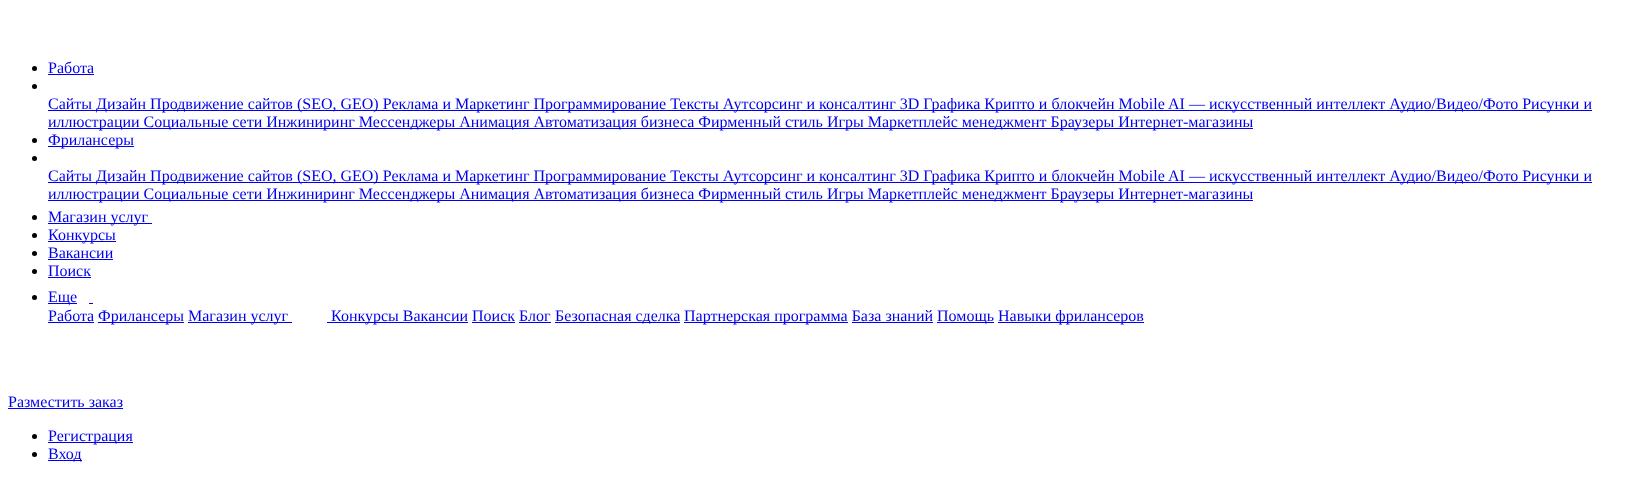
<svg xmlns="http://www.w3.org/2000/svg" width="1633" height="501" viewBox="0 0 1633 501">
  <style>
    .t1 { font: 16px Liberation Serif; fill: #00e; }
  </style>
  <rect width="100%" height="100%" fill="#fff"/>
  <circle cx="34.5" cy="68.5" r="2.5" fill="#000"/>
  <text x="48" y="73" class="t1">Работа</text>
  <rect x="48" y="74" width="46" height="1" fill="#00e"/>
  <circle cx="34.5" cy="86.5" r="2.5" fill="#000"/>
  <rect x="48" y="110" width="1544" height="1" fill="#00e"/>
  <text x="48" y="109" class="t1">Сайты Дизайн Продвижение сайтов (SEO, GEO) Реклама и Маркетинг Программирование Тексты Аутсорсинг и консалтинг 3D Графика Крипто и блокчейн Mobile</text>
  <text x="1168" y="109" class="t1">AI — искусственный интеллект Аудио/Видео/Фото Рисунки и</text>
  <rect x="48" y="128" width="1205" height="1" fill="#00e"/>
  <text x="48" y="127" class="t1">иллюстрации Социальные сети Инжиниринг Мессенджеры Анимация Автоматизация бизнеса Фирменный стиль Игры Маркетплейс менеджмент Браузеры Интернет-магазины</text>
  <circle cx="34.5" cy="140.5" r="2.5" fill="#000"/>
  <rect x="48" y="146" width="86" height="1" fill="#00e"/>
  <text x="48" y="145" class="t1">Фрилансеры</text>
  <circle cx="34.5" cy="158.5" r="2.5" fill="#000"/>
  <rect x="48" y="182" width="1544" height="1" fill="#00e"/>
  <text x="48" y="181" class="t1">Сайты Дизайн Продвижение сайтов (SEO, GEO) Реклама и Маркетинг Программирование Тексты Аутсорсинг и консалтинг 3D Графика Крипто и блокчейн Mobile</text>
  <text x="1168" y="181" class="t1">AI — искусственный интеллект Аудио/Видео/Фото Рисунки и</text>
  <rect x="48" y="200" width="1205" height="1" fill="#00e"/>
  <text x="48" y="199" class="t1">иллюстрации Социальные сети Инжиниринг Мессенджеры Анимация Автоматизация бизнеса Фирменный стиль Игры Маркетплейс менеджмент Браузеры Интернет-магазины</text>
  <circle cx="34.5" cy="217.5" r="2.5" fill="#000"/>
  <rect x="48" y="223" width="104" height="1" fill="#00e"/>
  <text x="48" y="222" class="t1">Магазин услуг</text>
  <circle cx="34.5" cy="235.5" r="2.5" fill="#000"/>
  <rect x="48" y="241" width="68" height="1" fill="#00e"/>
  <text x="48" y="240" class="t1">Конкурсы</text>
  <circle cx="34.5" cy="253.5" r="2.5" fill="#000"/>
  <text x="48" y="258" class="t1">Вакансии</text>
  <rect x="48" y="259" width="65" height="1" fill="#00e"/>
  <circle cx="34.5" cy="271.5" r="2.5" fill="#000"/>
  <text x="48" y="276" class="t1">Поиск</text>
  <rect x="48" y="277" width="43" height="1" fill="#00e"/>
  <circle cx="34.5" cy="297.5" r="2.5" fill="#000"/>
  <rect x="48" y="303" width="29" height="1" fill="#00e"/>
  <text x="48" y="302" class="t1">Еще</text>
  <rect x="89" y="303" width="4" height="1" fill="#00e"/>
  <text x="48" y="321" class="t1">Работа</text>
  <rect x="48" y="322" width="46" height="1" fill="#00e"/>
  <rect x="98" y="322" width="86" height="1" fill="#00e"/>
  <text x="98" y="321" class="t1">Фрилансеры</text>
  <rect x="188" y="322" width="104" height="1" fill="#00e"/>
  <text x="188" y="321" class="t1">Магазин услуг</text>
  <rect x="327" y="322" width="141" height="1" fill="#00e"/>
  <text x="331" y="321" class="t1">Конкурсы Вакансии Поиск Блог</text>
  <rect x="555" y="322" width="125" height="1" fill="#00e"/>
  <text x="555" y="321" class="t1">Безопасная сделка</text>
  <rect x="684" y="322" width="164" height="1" fill="#00e"/>
  <text x="684" y="321" class="t1">Партнерская программа База знаний</text>
  <rect x="937" y="322" width="57" height="1" fill="#00e"/>
  <text x="937" y="321" class="t1">Помощь</text>
  <rect x="998" y="322" width="146" height="1" fill="#00e"/>
  <text x="998" y="321" class="t1">Навыки фрилансеров</text>
  <rect x="472" y="322" width="43" height="1" fill="#00e"/>
  <rect x="519" y="322" width="32" height="1" fill="#00e"/>
  <rect x="852" y="322" width="81" height="1" fill="#00e"/>
  <text x="8" y="407" class="t1">Разместить заказ</text>
  <rect x="8" y="408" width="115" height="1" fill="#00e"/>
  <circle cx="34.5" cy="436.5" r="2.5" fill="#000"/>
  <rect x="48" y="442" width="85" height="1" fill="#00e"/>
  <text x="48" y="441" class="t1">Регистрация</text>
  <circle cx="34.5" cy="454.5" r="2.5" fill="#000"/>
  <rect x="48" y="460" width="34" height="1" fill="#00e"/>
  <text x="48" y="459" class="t1">Вход</text>
</svg>
